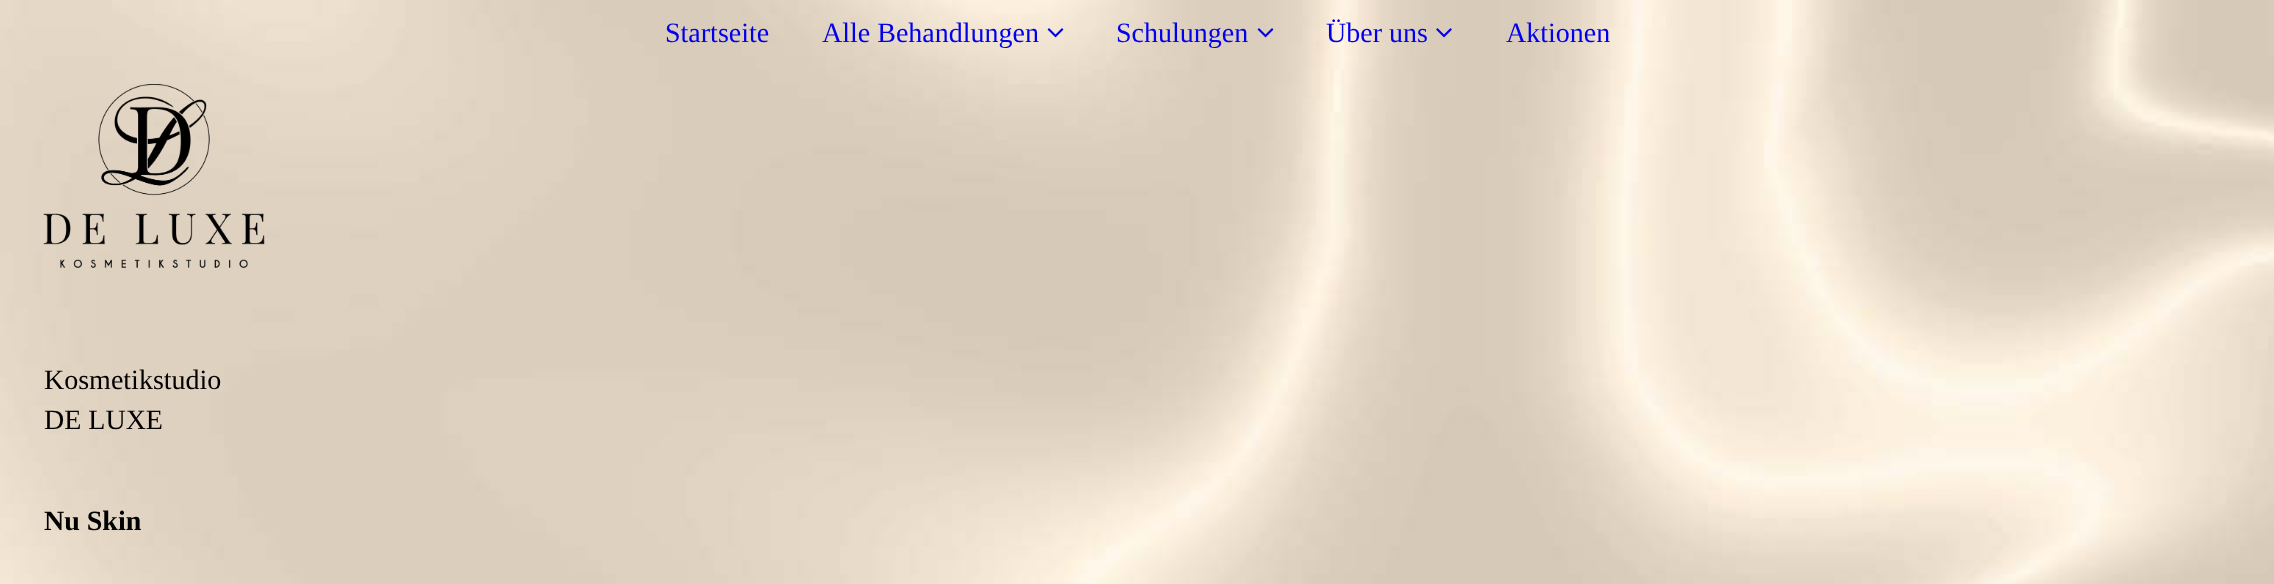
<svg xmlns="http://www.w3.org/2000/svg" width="2274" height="584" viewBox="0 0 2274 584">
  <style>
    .t1 { font: 28px Liberation Serif; fill: #00e; }
    .t2 { font: 28px Liberation Serif; fill: #000; }
    .t3 { font: bold 28px Liberation Serif; fill: #000; }
  </style>
  <rect width="100%" height="100%" fill="#fff"/>
  <image x="0" y="0" width="2274" height="584" href="images/1.png"/>
  <text x="665" y="42" class="t1">Startseite</text>
  <text x="822" y="42" class="t1">Alle Behandlungen</text>
  <image x="1047" y="28" width="17" height="10" href="images/2.png"/>
  <text x="1116" y="42" class="t1">Schulungen</text>
  <image x="1257" y="28" width="17" height="10" href="images/3.png"/>
  <text x="1326" y="42" class="t1">Über uns</text>
  <image x="1436" y="28" width="16" height="10" href="images/4.png"/>
  <text x="1506" y="42" class="t1">Aktionen</text>
  <image x="43" y="84" width="222" height="184" href="images/5.png"/>
  <text x="44" y="389" class="t2">Kosmetikstudio</text>
  <text x="44" y="429" class="t2">DE LUXE</text>
  <text x="44" y="530" class="t3">Nu Skin</text>
</svg>
